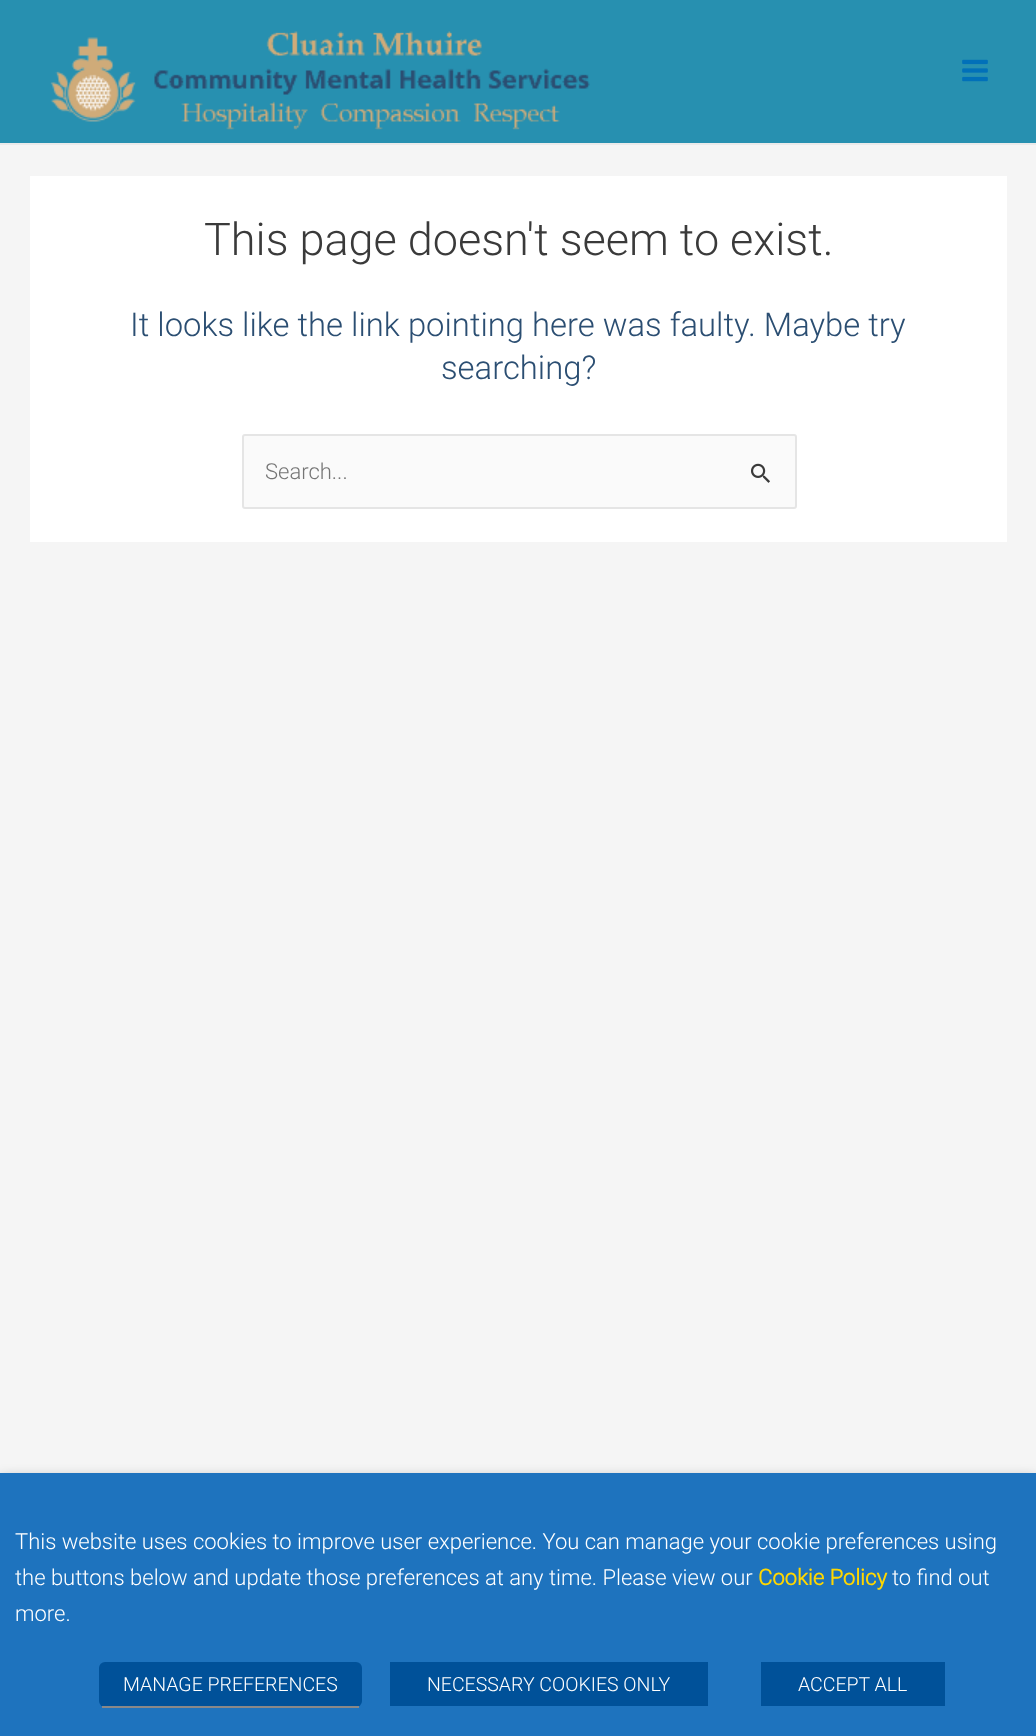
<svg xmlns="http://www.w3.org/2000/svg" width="1036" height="1736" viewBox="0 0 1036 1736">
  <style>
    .t1 { font: 300 45px Roboto; fill: #3a3a3a; }
    .t2 { font: 300 32.8px Roboto; fill: #2b4e72; }
    .t3 { font: 300 22px Roboto; fill: #757575; }
    .t4 { font: 300 22px Roboto; fill: #fff; }
    .t5 { font: bold 22px Roboto; fill: #ffd700; }
    .t6 { font: 300 19.5px Roboto; fill: #fff; }
  </style>
  <rect width="100%" height="100%" fill="#f5f5f5"/>
  <rect x="0" y="0" width="1036" height="143" fill="#2790b0"/>
  <rect x="0" y="143" width="1036" height="2" fill="#eaeaea"/>
  <image x="50" y="31" width="540" height="99" href="images/1.png"/>
  <image x="962" y="59" width="26" height="23" href="images/2.png"/>
  <rect x="30" y="176" width="977" height="366" fill="#fff"/>
  <text x="204" y="255" class="t1">This page doesn't seem to exist.</text>
  <text x="130" y="336" class="t2">It looks like the link pointing here was faulty. Maybe try</text>
  <text x="441" y="379" class="t2">searching?</text>
  <rect x="243" y="435" width="553" height="73" rx="2" fill="#fafafa" stroke="#e5e5e5" stroke-width="2"/>
  <text x="265" y="479" class="t3">Search...</text>
  <image x="751" y="463" width="19" height="20" href="images/3.png"/>
  <rect x="0" y="1481" width="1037" height="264" fill="#00000080" filter="blur(7.5px)"/>
  <rect x="0" y="1473" width="1036" height="263" fill="#1e73be"/>
  <text x="15" y="1549" class="t4">This website uses cookies to improve user experience. You can manage your cookie preferences using</text>
  <text x="15" y="1585" class="t4">the buttons below and update those preferences at any time. Please view our</text>
  <text x="758" y="1585" class="t5">Cookie Policy</text>
  <text x="892" y="1585" class="t4">to find out</text>
  <text x="15" y="1621" class="t4">more.</text>
  <rect x="99" y="1662" width="263" height="45" rx="6" fill="#005199"/>
  <rect x="102" y="1706" width="257" height="2" fill="#898888"/>
  <text x="123" y="1691" class="t6">MANAGE PREFERENCES</text>
  <rect x="390" y="1662" width="318" height="44" fill="#005199"/>
  <text x="427" y="1691" class="t6">NECESSARY COOKIES ONLY</text>
  <rect x="761" y="1662" width="184" height="44" fill="#005199"/>
  <text x="798" y="1691" class="t6">ACCEPT ALL</text>
</svg>
